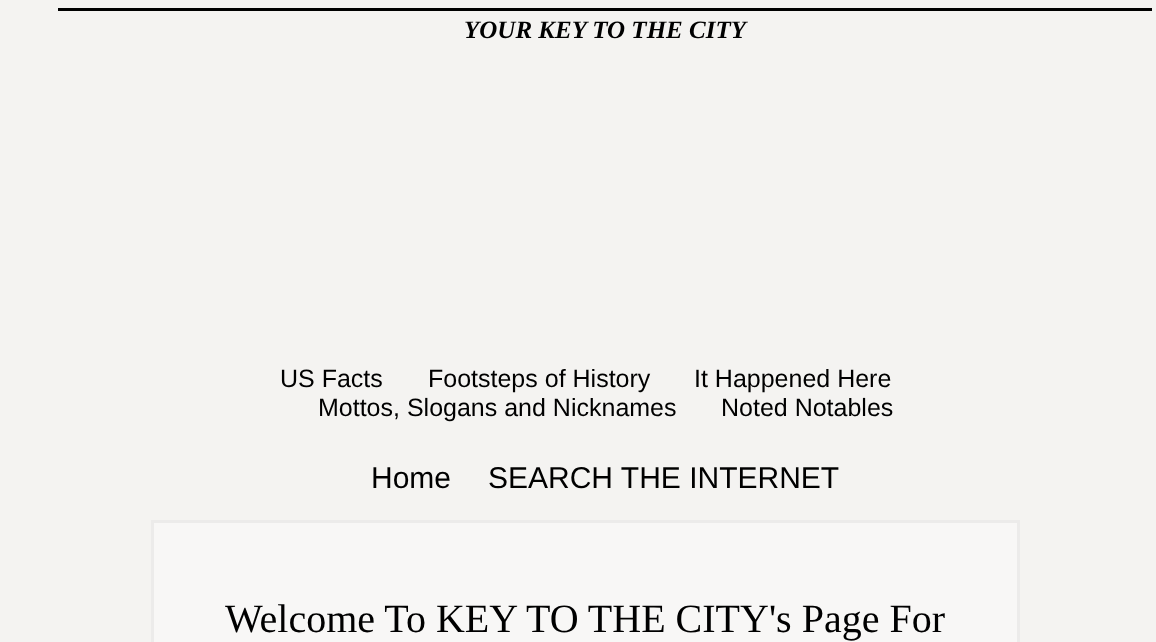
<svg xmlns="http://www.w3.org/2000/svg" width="1156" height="642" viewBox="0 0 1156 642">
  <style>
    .t1 { font: italic bold 25px Liberation Serif; fill: #000; }
    .t2 { font: 25px Liberation Sans; fill: #000; }
    .t3 { font: 30px Liberation Sans; fill: #000; }
    .t4 { font: 40px Liberation Serif; fill: #000; }
  </style>
  <rect width="100%" height="100%" fill="#f4f3f1"/>
  <rect x="58" y="8" width="1094" height="3" fill="#000"/>
  <text x="464" y="38" class="t1">YOUR KEY TO THE CITY</text>
  <text x="280" y="387" class="t2">US Facts</text>
  <text x="428" y="387" class="t2">Footsteps of History</text>
  <text x="694" y="387" class="t2">It Happened Here</text>
  <text x="318" y="416" class="t2">Mottos, Slogans and Nicknames</text>
  <text x="721" y="416" class="t2">Noted Notables</text>
  <text x="371" y="488" class="t3">Home</text>
  <text x="488" y="488" class="t3">SEARCH THE INTERNET</text>
  <rect x="152.5" y="521.5" width="866" height="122" fill="#f8f7f6" stroke="#ecebea" stroke-width="3"/>
  <text x="225" y="632" class="t4">Welcome To KEY TO THE CITY's Page For</text>
</svg>
